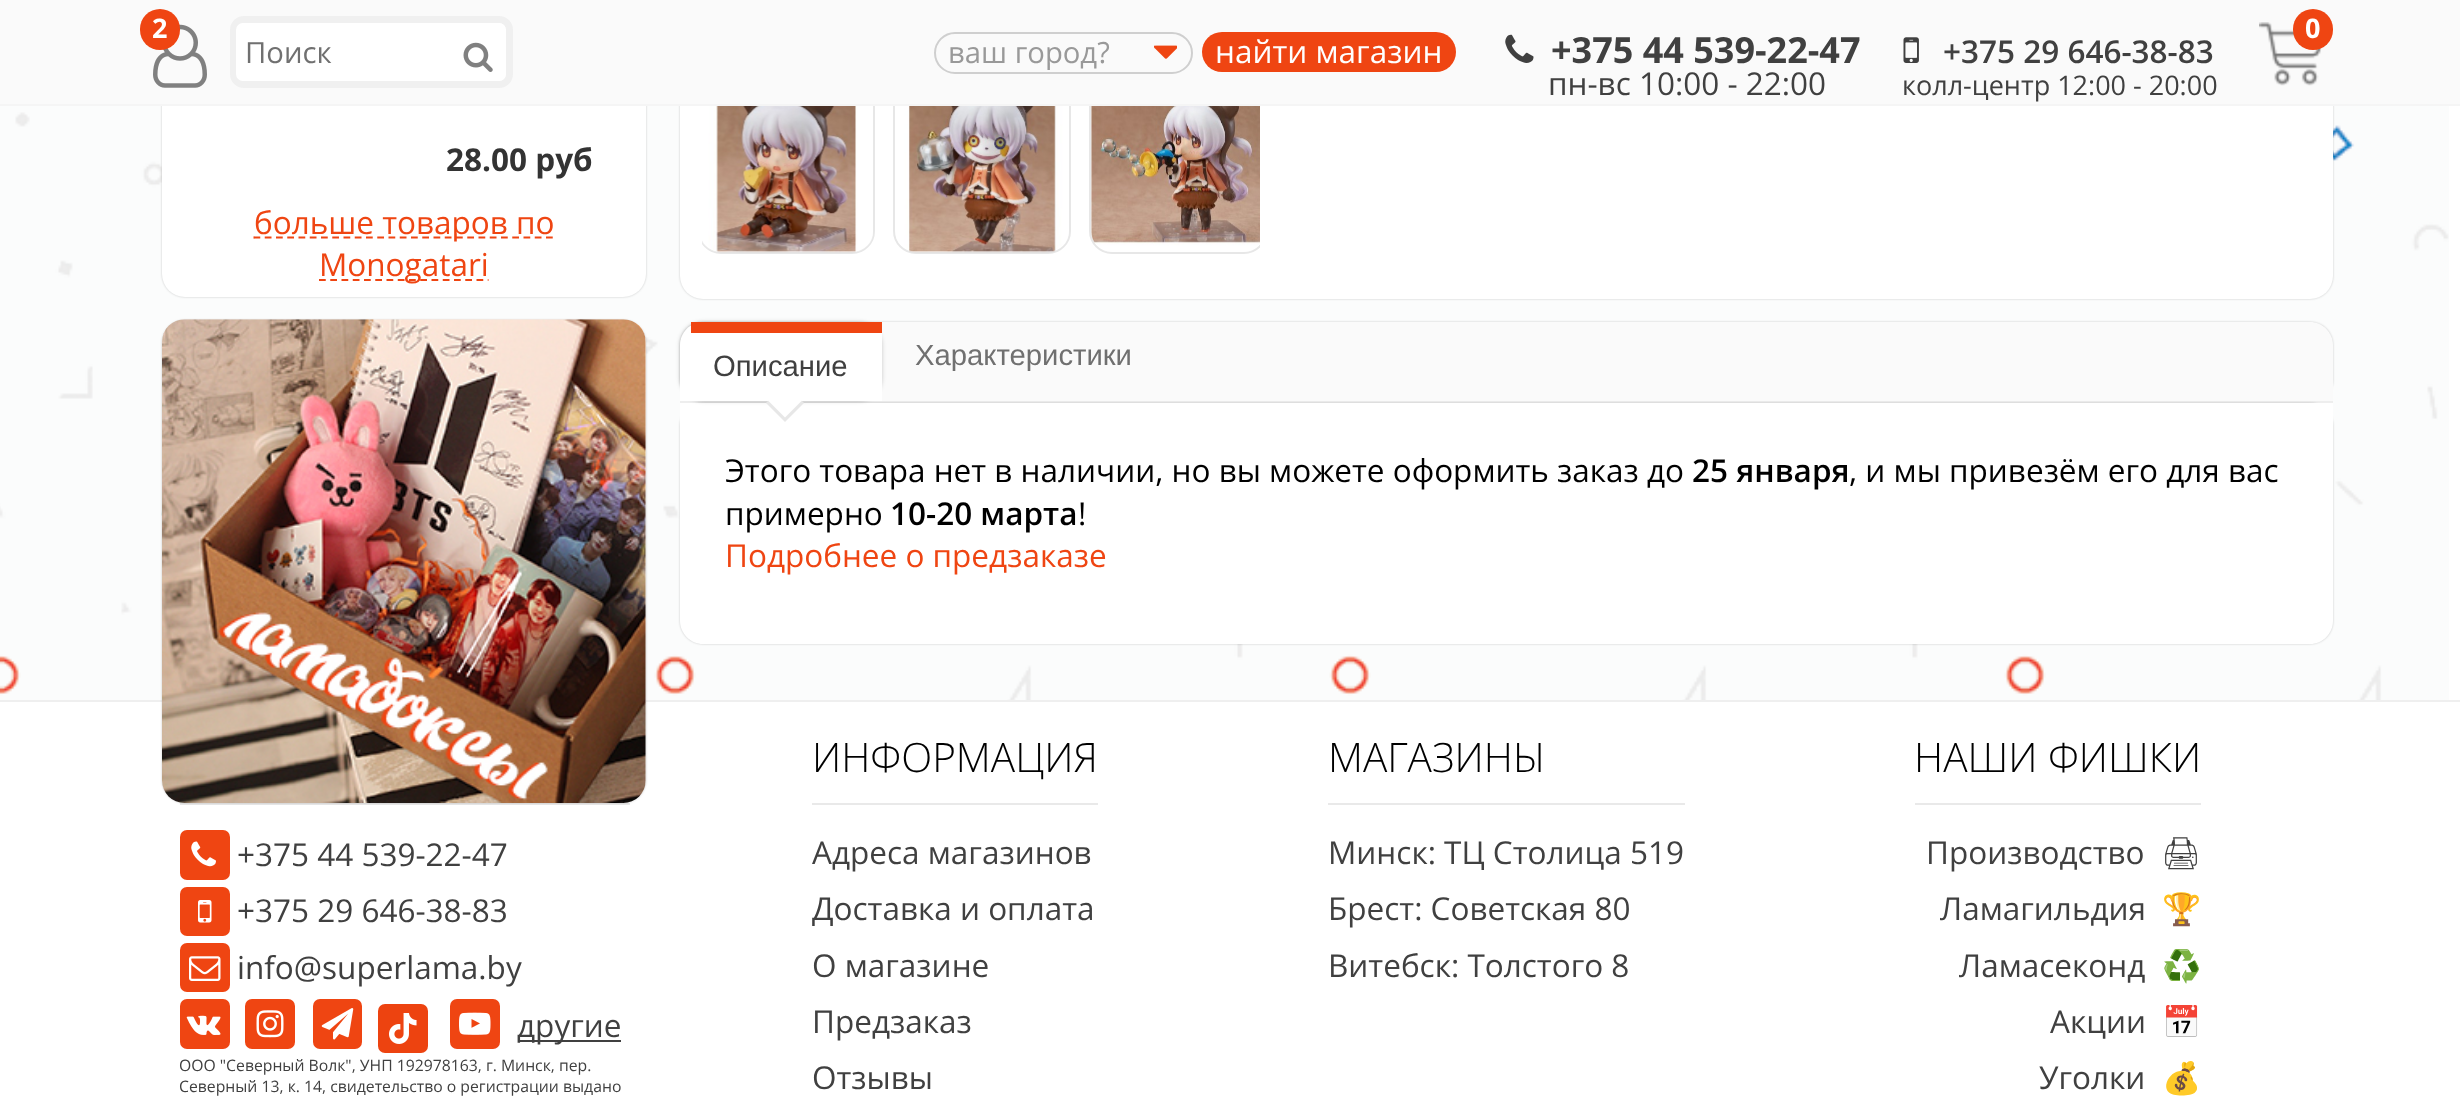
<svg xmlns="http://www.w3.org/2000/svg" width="2460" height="1104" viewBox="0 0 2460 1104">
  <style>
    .t1 { font: bold 27px Open Sans; fill: #fff; }
    .t2 { font: 29.25px Open Sans; fill: #707070; }
    .t3 { font: 29.25px Open Sans; fill: #999; }
    .t4 { font: 31.5px Open Sans; fill: #fff; }
    .t5 { font: bold 36px Open Sans; fill: #404040; }
    .t6 { font: 31.5px Open Sans; fill: #404040; }
    .t7 { font: 600 31.5px Open Sans; fill: #404040; }
    .t8 { font: 27px Open Sans; fill: #404040; }
    .t9 { font: bold 31.5px Open Sans; fill: #333; }
    .t10 { font: 31.5px Open Sans; fill: #ef4512; }
    .t11 { font: 29.25px Liberation Sans; fill: #404040; }
    .t12 { font: 29.25px Liberation Sans; fill: #707070; }
    .t13 { font: 31.5px Open Sans; fill: #000; }
    .t14 { font: 600 31.5px Open Sans; fill: #000; }
    .t15 { font: 15.75px Open Sans; fill: #404040; }
    .t16 { font: 300 40.5px Open Sans; fill: #000; }
    .t17 { font: 31.5px Noto Emoji; fill: #404040; }
    .t18 { font: 31.5px Noto Color Emoji; fill: #404040; }
  </style>
  <defs>
    <clipPath id="clip1"><rect x="702" y="77" width="558" height="200"/></clipPath>
  </defs>
  <rect width="100%" height="100%" fill="#fff"/>
  <image x="0" y="106" width="2449" height="594" href="images/7.png"/>
  <rect x="162" y="-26" width="484" height="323" rx="23" fill="#00000033" filter="blur(1px)"/>
  <rect x="162" y="-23" width="484" height="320" rx="23" fill="#fff"/>
  <rect x="680" y="-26" width="1653" height="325" rx="23" fill="#00000033" filter="blur(1px)"/>
  <rect x="680" y="-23" width="1653" height="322" rx="23" fill="#fff"/>
  <g clip-path="url(#clip1)">
    <rect x="699" y="78" width="175" height="175" rx="22" fill="none" stroke="#e7e7e7" stroke-width="2"/>
  </g>
  <rect x="894" y="78" width="176" height="175" rx="22" fill="none" stroke="#e7e7e7" stroke-width="2"/>
  <g clip-path="url(#clip1)">
    <rect x="1090" y="78" width="176" height="175" rx="22" fill="none" stroke="#e7e7e7" stroke-width="2"/>
  </g>
  <rect x="0" y="0" width="2460" height="104" fill="#fafafa"/>
  <rect x="0" y="104" width="2460" height="2" fill="#f5f5f5"/>
  <image x="153" y="24" width="54" height="64" href="images/1.png"/>
  <rect x="140" y="9" width="40" height="41" rx="20" fill="#ef4512"/>
  <text x="152" y="38" class="t1">2</text>
  <rect x="233.5" y="19.5" width="276" height="65" rx="10.5" fill="none" stroke="#f0f0f0" stroke-width="7"/>
  <rect x="237" y="24" width="268" height="56" rx="6" fill="#fff" stroke="#fff" stroke-width="2"/>
  <text x="245" y="63" class="t2">Поиск</text>
  <image x="463" y="42" width="30" height="30" href="images/2.png"/>
  <image x="1154" y="45" width="23" height="14" href="images/3.png"/>
  <rect x="935" y="33" width="257" height="40" rx="20" fill="none" stroke="#cfcfcf" stroke-width="2"/>
  <text x="948" y="63" class="t3">ваш город?</text>
  <rect x="1202" y="32" width="254" height="40" rx="20" fill="#ef4512"/>
  <text x="1215" y="63" class="t4">найти магазин</text>
  <image x="1505" y="34" width="29" height="29" href="images/4.png"/>
  <text x="1551" y="63" class="t5">+375 44 539-22-47</text>
  <text x="1548" y="95" class="t6">пн-вс 10:00 - 22:00</text>
  <image x="1903" y="37" width="16" height="26" href="images/5.png"/>
  <text x="1943" y="63" class="t7">+375 29 646-38-83</text>
  <text x="1902" y="95" class="t8">колл-центр 12:00 - 20:00</text>
  <image x="2259" y="22" width="63" height="64" href="images/6.png"/>
  <rect x="2293" y="9" width="40" height="41" rx="20" fill="#ef4512"/>
  <text x="2305" y="38" class="t1">0</text>
  <text x="446" y="171" class="t9">28.00 руб</text>
  <path d="M253.5 237.5H554" fill="none" stroke="#ef4512" stroke-width="2.2" stroke-dasharray="6.75 4.5"/>
  <text x="254" y="234" class="t10">больше товаров по</text>
  <path d="M319 280H488.5" fill="none" stroke="#ef4512" stroke-width="2.2" stroke-dasharray="6.75 4.5"/>
  <text x="319" y="276" class="t10">Monogatari</text>
  <rect x="0" y="700" width="2460" height="2" fill="#efefef"/>
  <rect x="180" y="803" width="450" height="2" fill="#e9e9e9"/>
  <rect x="162" y="320" width="484" height="483" rx="23" fill="#00000033" filter="blur(1px)"/>
  <rect x="162" y="320" width="484" height="483" rx="23" fill="#fff"/>
  <image x="162" y="319" width="484" height="484" href="images/8.png"/>
  <image x="702" y="106" width="171" height="147" href="images/9.png"/>
  <image x="896" y="106" width="173" height="147" href="images/10.png"/>
  <image x="1091" y="106" width="169" height="146" href="images/11.png"/>
  <rect x="680" y="322" width="1653" height="81" rx="23" fill="#00000033" filter="blur(1px)"/>
  <path d="M703 322H2310C2322.5 322 2333 332.5 2333 345V403H680V345C680 332.5 690.5 322 703 322Z" fill="#fafafa"/>
  <rect x="680" y="401" width="1653" height="2" fill="#eee"/>
  <rect x="680" y="403" width="1653" height="241" rx="23" fill="#00000033" filter="blur(1px)"/>
  <path d="M680 403H2333V621C2333 633.5 2322.5 644 2310 644H703C690.5 644 680 633.5 680 621Z" fill="#fff"/>
  <rect x="680" y="322" width="202" height="79" rx="23" fill="#00000033" filter="blur(2px)"/>
  <path d="M703 322H882V401H680V345C680 332.5 690.5 322 703 322Z" fill="#fff"/>
  <rect x="691" y="322" width="191" height="11" fill="#ef4512"/>
  <text x="713" y="376" class="t11">Описание</text>
  <path d="M785 384L804 403L785 422L766 403Z" fill="#e7e7e7"/>
  <path d="M785 379.5L804 398.5L785 417.5L766 398.5Z" fill="#fff"/>
  <text x="915" y="365" class="t12">Характеристики</text>
  <text x="725" y="482" class="t13">Этого товара нет в наличии, но вы можете оформить заказ до</text>
  <text x="1692" y="482" class="t14">25 января</text>
  <text x="1849" y="482" class="t13">, и мы привезём его для вас</text>
  <text x="725" y="525" class="t13">примерно</text>
  <text x="890" y="525" class="t14">10-20 марта</text>
  <text x="1078" y="525" class="t13">!</text>
  <text x="725" y="567" class="t10">Подробнее о предзаказе</text>
  <rect x="180" y="830" width="50" height="50" rx="7" fill="#ef4512"/>
  <image x="191" y="841" width="25" height="26" href="images/12.png"/>
  <text x="237" y="866" class="t6">+375 44 539-22-47</text>
  <rect x="180" y="887" width="50" height="49" rx="7" fill="#ef4512"/>
  <image x="198" y="900" width="14" height="23" href="images/13.png"/>
  <text x="237" y="922" class="t6">+375 29 646-38-83</text>
  <rect x="180" y="943" width="50" height="49" rx="7" fill="#ef4512"/>
  <image x="189" y="956" width="32" height="25" href="images/14.png"/>
  <text x="237" y="979" class="t6">info@superlama.by</text>
  <rect x="180" y="999" width="50" height="50" rx="7" fill="#ef4512"/>
  <image x="186" y="1015" width="35" height="20" href="images/15.png"/>
  <rect x="245" y="999" width="50" height="50" rx="7" fill="#ef4512"/>
  <image x="256" y="1010" width="28" height="28" href="images/16.png"/>
  <rect x="313" y="999" width="49" height="50" rx="7" fill="#ef4512"/>
  <image x="321" y="1008" width="33" height="32" href="images/17.png"/>
  <rect x="378" y="1004" width="50" height="49" rx="7" fill="#ed4310"/>
  <rect x="450" y="999" width="50" height="50" rx="7" fill="#ef4512"/>
  <image x="459" y="1012" width="32" height="23" href="images/18.png"/>
  <image x="389" y="1013" width="28" height="31" href="images/19.png"/>
  <rect x="518" y="1040" width="103" height="2" fill="#404040"/>
  <text x="517" y="1037" class="t6">другие</text>
  <text x="179" y="1071" class="t15">ООО "Северный Волк", УНП 192978163, г. Минск, пер.</text>
  <text x="179" y="1092" class="t15">Северный 13, к. 14, свидетельство о регистрации выдано</text>
  <rect x="812" y="803" width="286" height="2" fill="#e9e9e9"/>
  <text x="812" y="772" class="t16">ИНФОРМАЦИЯ</text>
  <text x="812" y="864" class="t6">Адреса магазинов</text>
  <text x="812" y="920" class="t6">Доставка и оплата</text>
  <text x="812" y="977" class="t6">О магазине</text>
  <text x="812" y="1033" class="t6">Предзаказ</text>
  <text x="812" y="1089" class="t6">Отзывы</text>
  <rect x="1328" y="803" width="357" height="2" fill="#e9e9e9"/>
  <text x="1328" y="772" class="t16">МАГАЗИНЫ</text>
  <text x="1328" y="864" class="t6">Минск: ТЦ Столица 519</text>
  <text x="1328" y="920" class="t6">Брест: Советская 80</text>
  <text x="1328" y="977" class="t6">Витебск: Толстого 8</text>
  <rect x="1915" y="803" width="286" height="2" fill="#e9e9e9"/>
  <text x="1914" y="772" class="t16">НАШИ ФИШКИ</text>
  <text x="1926" y="864" class="t6">Производство</text>
  <text x="2161" y="864" class="t17">🖨</text>
  <text x="1940" y="920" class="t6">Ламагильдия</text>
  <text x="2162" y="920" class="t18">🏆</text>
  <text x="1959" y="977" class="t6">Ламасеконд</text>
  <text x="2162" y="977" class="t18">♻️</text>
  <text x="2050" y="1033" class="t6">Акции</text>
  <text x="2162" y="1033" class="t18">📅</text>
  <text x="2039" y="1089" class="t6">Уголки</text>
  <text x="2162" y="1089" class="t18">💰</text>
</svg>
